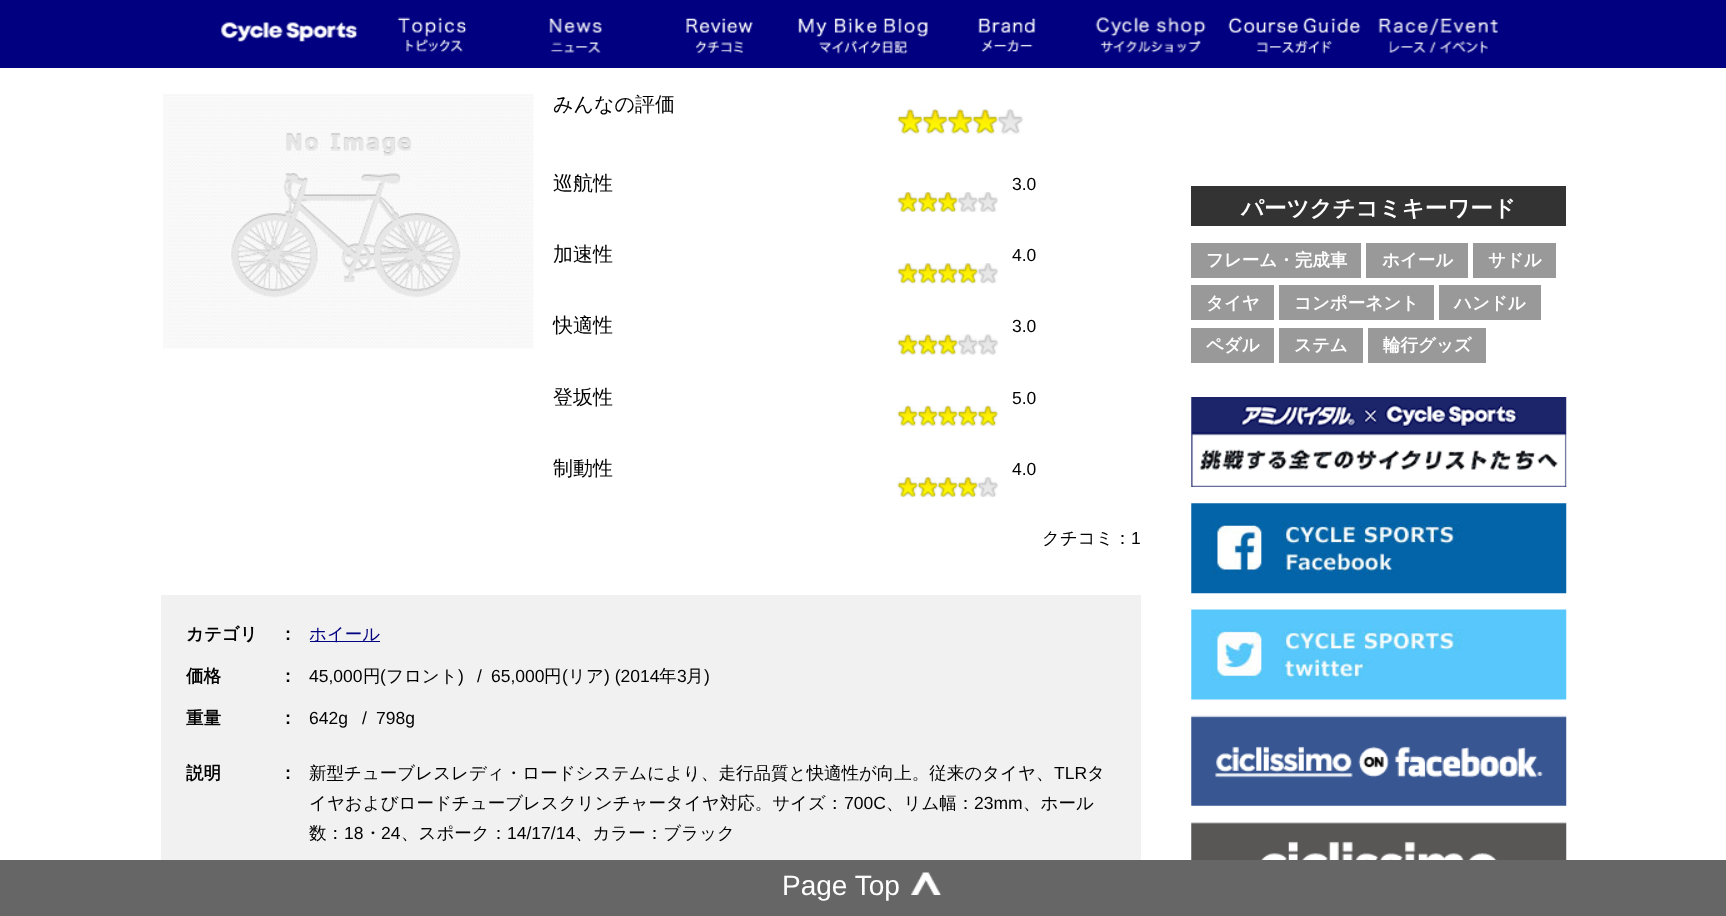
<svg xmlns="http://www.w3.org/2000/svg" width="1726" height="916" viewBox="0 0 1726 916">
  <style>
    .t1 { font: 500 20px WenQuanYi Zen Hei; fill: #000; }
    .t2 { font: 17.5px Liberation Sans; fill: #000; }
    .t3 { font: 500 17.5px WenQuanYi Zen Hei; fill: #000; }
    .t4 { font: bold 17.5px WenQuanYi Zen Hei; fill: #000; }
    .t5 { font: 500 17.5px WenQuanYi Zen Hei; fill: #000080; }
    .t6 { font: bold 22.5px WenQuanYi Zen Hei; fill: #fff; }
    .t7 { font: bold 17.5px WenQuanYi Zen Hei; fill: #fff; }
    .t8 { font: 28px Liberation Sans; fill: #fff; }
  </style>
  <rect width="100%" height="100%" fill="#fff"/>
  <rect x="0" y="0" width="1726" height="68" fill="#000080"/>
  <image x="220" y="22" width="138" height="20" href="images/1.png"/>
  <image x="397" y="17" width="70" height="35" href="images/2.png"/>
  <image x="549" y="18" width="54" height="35" href="images/3.png"/>
  <image x="686" y="18" width="67" height="36" href="images/4.png"/>
  <image x="798" y="18" width="130" height="36" href="images/5.png"/>
  <image x="978" y="18" width="58" height="34" href="images/6.png"/>
  <image x="1095" y="17" width="111" height="36" href="images/7.png"/>
  <image x="1228" y="17" width="133" height="37" href="images/8.png"/>
  <image x="1378" y="17" width="120" height="37" href="images/9.png"/>
  <image x="163" y="94" width="371" height="255" href="images/10.png"/>
  <text x="553" y="111" class="t1">みんなの評価</text>
  <image x="897" y="109" width="26" height="26" href="images/11.png"/>
  <image x="897" y="109" width="26" height="25" href="images/12.png"/>
  <image x="922" y="109" width="26" height="26" href="images/13.png"/>
  <image x="922" y="109" width="26" height="25" href="images/14.png"/>
  <image x="947" y="109" width="26" height="26" href="images/13.png"/>
  <image x="947" y="109" width="26" height="25" href="images/14.png"/>
  <image x="972" y="109" width="26" height="26" href="images/13.png"/>
  <image x="972" y="109" width="26" height="25" href="images/14.png"/>
  <image x="997" y="109" width="26" height="26" href="images/13.png"/>
  <image x="1009" y="109" width="14" height="11" href="images/15.png"/>
  <text x="553" y="190" class="t1">巡航性</text>
  <text x="1012" y="190" class="t2">3.0</text>
  <image x="897" y="192" width="21" height="20" href="images/16.png"/>
  <image x="897" y="192" width="21" height="20" href="images/17.png"/>
  <image x="917" y="192" width="21" height="20" href="images/18.png"/>
  <image x="917" y="192" width="21" height="20" href="images/19.png"/>
  <image x="937" y="192" width="21" height="20" href="images/20.png"/>
  <image x="937" y="192" width="21" height="20" href="images/21.png"/>
  <image x="957" y="192" width="21" height="20" href="images/20.png"/>
  <image x="957" y="199" width="21" height="2" href="images/22.png"/>
  <image x="978" y="192" width="20" height="20" href="images/23.png"/>
  <image x="997" y="199" width="1" height="2" href="images/24.png"/>
  <text x="553" y="261" class="t1">加速性</text>
  <text x="1012" y="261" class="t2">4.0</text>
  <image x="897" y="263" width="21" height="21" href="images/25.png"/>
  <image x="897" y="263" width="21" height="21" href="images/26.png"/>
  <image x="917" y="263" width="21" height="21" href="images/27.png"/>
  <image x="917" y="263" width="21" height="21" href="images/28.png"/>
  <image x="937" y="263" width="21" height="21" href="images/29.png"/>
  <image x="937" y="263" width="21" height="21" href="images/30.png"/>
  <image x="957" y="263" width="21" height="21" href="images/29.png"/>
  <image x="957" y="263" width="21" height="21" href="images/30.png"/>
  <image x="977" y="263" width="21" height="21" href="images/29.png"/>
  <image x="977" y="263" width="21" height="9" href="images/31.png"/>
  <text x="553" y="332" class="t1">快適性</text>
  <text x="1012" y="332" class="t2">3.0</text>
  <image x="897" y="334" width="21" height="21" href="images/32.png"/>
  <image x="897" y="334" width="21" height="21" href="images/33.png"/>
  <image x="917" y="334" width="21" height="21" href="images/34.png"/>
  <image x="917" y="334" width="21" height="21" href="images/35.png"/>
  <image x="937" y="334" width="21" height="21" href="images/36.png"/>
  <image x="937" y="334" width="21" height="21" href="images/37.png"/>
  <image x="957" y="334" width="21" height="21" href="images/36.png"/>
  <image x="957" y="334" width="21" height="21" href="images/38.png"/>
  <image x="978" y="334" width="20" height="21" href="images/39.png"/>
  <image x="983" y="334" width="15" height="21" href="images/40.png"/>
  <text x="553" y="404" class="t1">登坂性</text>
  <text x="1012" y="404" class="t2">5.0</text>
  <image x="897" y="405" width="21" height="21" href="images/41.png"/>
  <image x="897" y="405" width="21" height="21" href="images/42.png"/>
  <image x="917" y="405" width="21" height="21" href="images/43.png"/>
  <image x="917" y="405" width="21" height="21" href="images/44.png"/>
  <image x="937" y="405" width="21" height="21" href="images/45.png"/>
  <image x="937" y="405" width="21" height="21" href="images/46.png"/>
  <image x="957" y="405" width="21" height="21" href="images/45.png"/>
  <image x="957" y="405" width="21" height="21" href="images/46.png"/>
  <image x="977" y="405" width="21" height="21" href="images/45.png"/>
  <image x="977" y="405" width="21" height="21" href="images/46.png"/>
  <text x="553" y="475" class="t1">制動性</text>
  <text x="1012" y="475" class="t2">4.0</text>
  <image x="897" y="477" width="21" height="20" href="images/16.png"/>
  <image x="897" y="477" width="21" height="20" href="images/17.png"/>
  <image x="917" y="477" width="21" height="20" href="images/18.png"/>
  <image x="917" y="477" width="21" height="20" href="images/19.png"/>
  <image x="937" y="477" width="21" height="20" href="images/20.png"/>
  <image x="937" y="477" width="21" height="20" href="images/21.png"/>
  <image x="957" y="477" width="21" height="20" href="images/20.png"/>
  <image x="957" y="477" width="21" height="20" href="images/21.png"/>
  <image x="977" y="477" width="21" height="20" href="images/20.png"/>
  <image x="977" y="484" width="21" height="2" href="images/22.png"/>
  <text x="1042" y="544" class="t3">クチコミ：</text>
  <text x="1131" y="544" class="t2">1</text>
  <rect x="161" y="595" width="980" height="265" fill="#f1f1f1"/>
  <text x="186" y="640" class="t4">カテゴリ</text>
  <text x="279" y="640" class="t4">：</text>
  <rect x="310" y="641" width="70" height="1" fill="#000080"/>
  <text x="309" y="640" class="t5">ホイール</text>
  <text x="186" y="682" class="t4">価格</text>
  <text x="279" y="682" class="t4">：</text>
  <text x="309" y="682" class="t2">45,000</text>
  <text x="363" y="682" class="t3">円</text>
  <text x="380" y="682" class="t2">(</text>
  <text x="386" y="682" class="t3">フロント</text>
  <text x="458" y="682" class="t2">)</text>
  <text x="477" y="682" class="t2">/</text>
  <text x="491" y="682" class="t2">65,000</text>
  <text x="544" y="682" class="t3">円</text>
  <text x="562" y="682" class="t2">(</text>
  <text x="568" y="682" class="t3">リア</text>
  <text x="604" y="682" class="t2">) (2014</text>
  <text x="659" y="682" class="t3">年</text>
  <text x="677" y="682" class="t2">3</text>
  <text x="686" y="682" class="t3">月</text>
  <text x="704" y="682" class="t2">)</text>
  <text x="186" y="724" class="t4">重量</text>
  <text x="279" y="724" class="t4">：</text>
  <text x="309" y="724" class="t2">642g</text>
  <text x="362" y="724" class="t2">/</text>
  <text x="376" y="724" class="t2">798g</text>
  <text x="186" y="779" class="t4">説明</text>
  <text x="279" y="779" class="t4">：</text>
  <text x="309" y="779" class="t3">新型チューブレスレディ・ロードシステムにより、走行品質と快適性が向上。従来のタイヤ、</text>
  <text x="1054" y="779" class="t2">TLR</text>
  <text x="1087" y="779" class="t3">タ</text>
  <text x="309" y="809" class="t3">イヤおよびロードチューブレスクリンチャータイヤ対応。サイズ：</text>
  <text x="844" y="809" class="t2">700C</text>
  <text x="886" y="809" class="t3">、リム幅：</text>
  <text x="974" y="809" class="t2">23mm</text>
  <text x="1023" y="809" class="t3">、ホール</text>
  <text x="309" y="839" class="t3">数：</text>
  <text x="344" y="839" class="t2">18</text>
  <text x="364" y="839" class="t3">・</text>
  <text x="381" y="839" class="t2">24</text>
  <text x="401" y="839" class="t3">、スポーク：</text>
  <text x="507" y="839" class="t2">14/17/14</text>
  <text x="575" y="839" class="t3">、カラー：ブラック</text>
  <rect x="1191" y="186" width="375" height="40" fill="#333"/>
  <text x="1241" y="216" class="t6">パーツクチコミキーワード</text>
  <rect x="1191" y="243" width="170" height="35" fill="#999"/>
  <text x="1206" y="266" class="t7">フレーム・完成車</text>
  <rect x="1366" y="243" width="102" height="35" fill="#999"/>
  <text x="1382" y="266" class="t7">ホイール</text>
  <rect x="1473" y="243" width="83" height="35" fill="#999"/>
  <text x="1488" y="266" class="t7">サドル</text>
  <rect x="1191" y="285" width="83" height="35" fill="#999"/>
  <text x="1206" y="309" class="t7">タイヤ</text>
  <rect x="1279" y="285" width="155" height="35" fill="#999"/>
  <text x="1294" y="309" class="t7">コンポーネント</text>
  <rect x="1439" y="285" width="102" height="35" fill="#999"/>
  <text x="1454" y="309" class="t7">ハンドル</text>
  <rect x="1191" y="328" width="83" height="35" fill="#999"/>
  <text x="1206" y="351" class="t7">ペダル</text>
  <rect x="1279" y="328" width="84" height="35" fill="#999"/>
  <text x="1294" y="351" class="t7">ステム</text>
  <rect x="1368" y="328" width="118" height="35" fill="#999"/>
  <text x="1383" y="351" class="t7">輪行グッズ</text>
  <image x="1191" y="397" width="376" height="90" href="images/47.png"/>
  <image x="1191" y="503" width="376" height="91" href="images/48.png"/>
  <image x="1191" y="609" width="376" height="91" href="images/49.png"/>
  <image x="1191" y="715" width="376" height="91" href="images/50.png"/>
  <image x="1191" y="822" width="376" height="38" href="images/51.png"/>
  <rect x="0" y="860" width="1726" height="56" fill="#666"/>
  <text x="782" y="895" class="t8">Page Top</text>
  <image x="911" y="872" width="31" height="23" href="images/52.png"/>
</svg>
